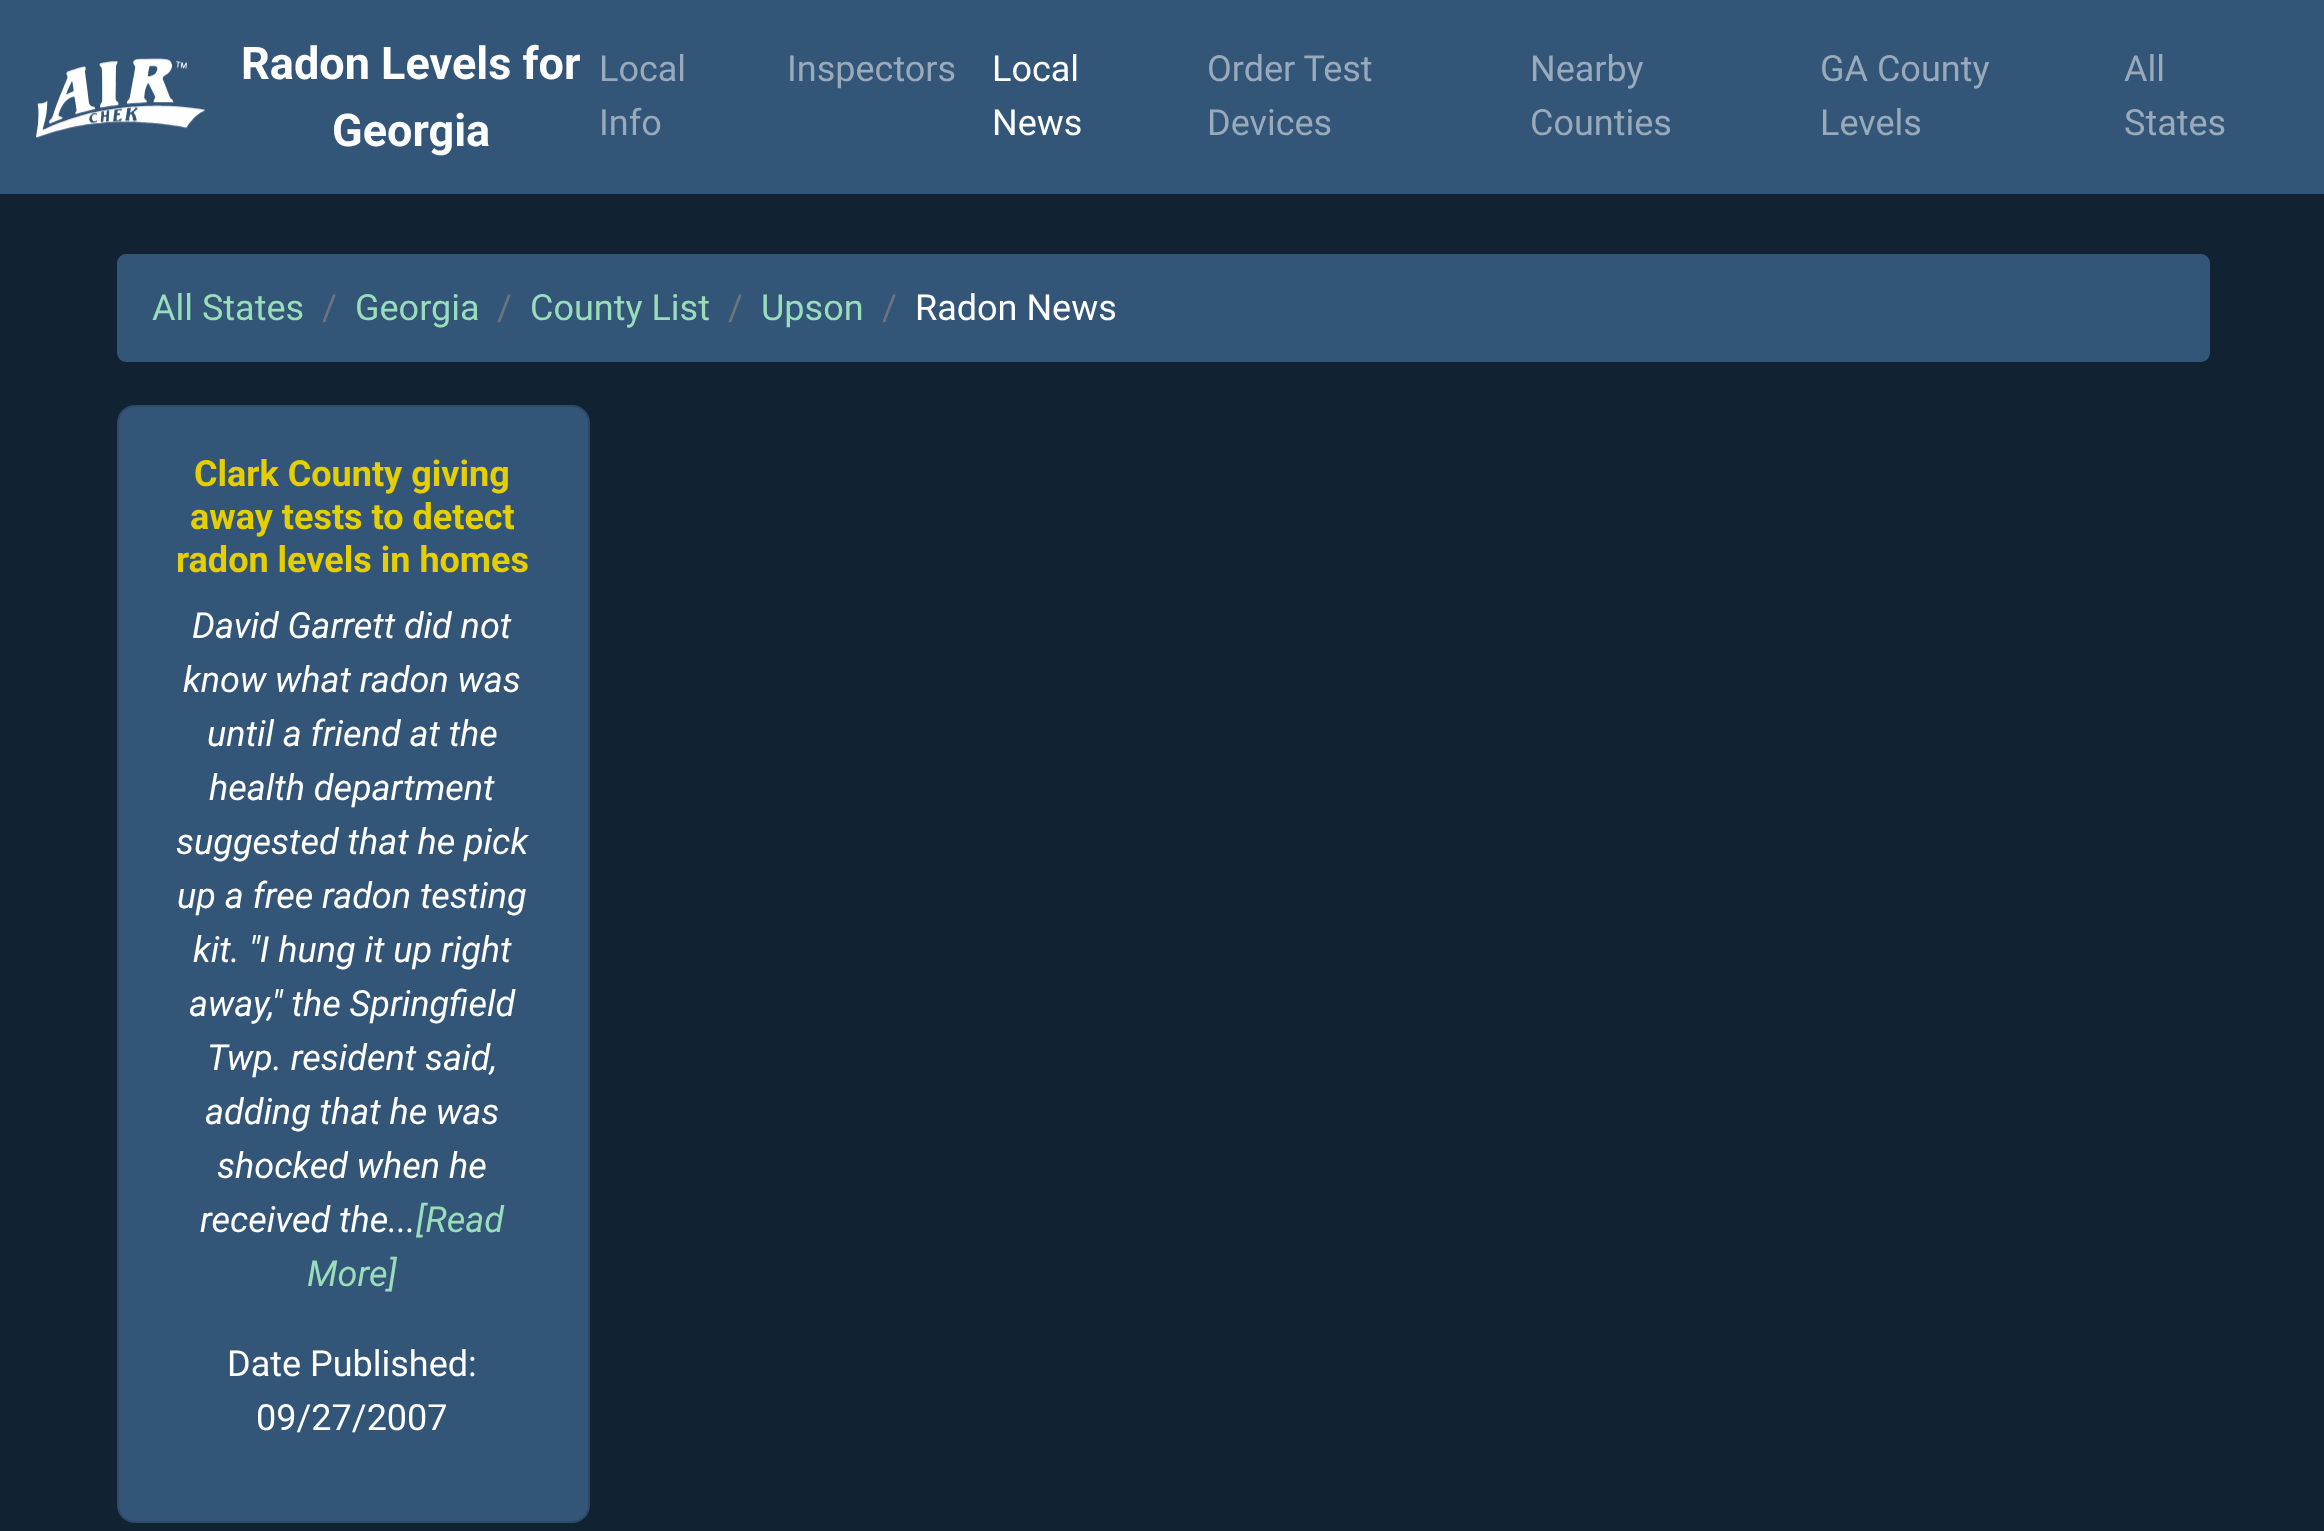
<svg xmlns="http://www.w3.org/2000/svg" width="2324" height="1531" viewBox="0 0 2324 1531">
  <style>
    .t1 { font: bold 45px Roboto; fill: #fff; }
    .t2 { font: 36px Roboto; fill: #9ab; }
    .t3 { font: 36px Roboto; fill: #fff; }
    .t4 { font: 36px Roboto; fill: #9db; }
    .t5 { font: 36px Roboto; fill: #6c757d; }
    .t6 { font: bold 36px Roboto; fill: #e5cf02; }
    .t7 { font: italic 36px Roboto; fill: #fff; }
    .t8 { font: italic 36px Roboto; fill: #9db; }
  </style>
  <rect width="100%" height="100%" fill="#123"/>
  <rect x="0" y="0" width="2324" height="194" fill="#357"/>
  <image x="36" y="58" width="169" height="80" href="images/1.png"/>
  <text x="241" y="79" class="t1">Radon Levels for</text>
  <text x="332" y="146" class="t1">Georgia</text>
  <text x="599" y="81" class="t2">Local</text>
  <text x="599" y="135" class="t2">Info</text>
  <text x="787" y="81" class="t2">Inspectors</text>
  <text x="992" y="81" class="t3">Local</text>
  <text x="992" y="135" class="t3">News</text>
  <text x="1207" y="81" class="t2">Order Test</text>
  <text x="1207" y="135" class="t2">Devices</text>
  <text x="1530" y="81" class="t2">Nearby</text>
  <text x="1530" y="135" class="t2">Counties</text>
  <text x="1820" y="81" class="t2">GA County</text>
  <text x="1820" y="135" class="t2">Levels</text>
  <text x="2124" y="81" class="t2">All</text>
  <text x="2124" y="135" class="t2">States</text>
  <rect x="117" y="254" width="2093" height="108" rx="9" fill="#357"/>
  <text x="152" y="320" class="t4">All States</text>
  <text x="322" y="320" class="t5">/</text>
  <text x="355" y="320" class="t4">Georgia</text>
  <text x="497" y="320" class="t5">/</text>
  <text x="530" y="320" class="t4">County List</text>
  <text x="728" y="320" class="t5">/</text>
  <text x="761" y="320" class="t4">Upson</text>
  <text x="882" y="320" class="t5">/</text>
  <text x="915" y="320" class="t3">Radon News</text>
  <rect x="117" y="405" width="473" height="1118" rx="18" fill="#357"/>
  <rect x="118" y="406" width="471" height="1116" rx="17" fill="none" stroke="#0000001f" stroke-width="2"/>
  <text x="194" y="486" class="t6">Clark County giving</text>
  <text x="190" y="529" class="t6">away tests to detect</text>
  <text x="176" y="572" class="t6">radon levels in homes</text>
  <text x="192" y="638" class="t7">David Garrett did not</text>
  <text x="183" y="692" class="t7">know what radon was</text>
  <text x="207" y="746" class="t7">until a friend at the</text>
  <text x="209" y="800" class="t7">health department</text>
  <text x="176" y="854" class="t7">suggested that he pick</text>
  <text x="177" y="908" class="t7">up a free radon testing</text>
  <text x="193" y="962" class="t7">kit. "I hung it up right</text>
  <text x="189" y="1016" class="t7">away," the Springfield</text>
  <text x="207" y="1070" class="t7">Twp. resident said,</text>
  <text x="205" y="1124" class="t7">adding that he was</text>
  <text x="217" y="1178" class="t7">shocked when he</text>
  <text x="200" y="1232" class="t7">received the...</text>
  <text x="416" y="1232" class="t8">[Read</text>
  <text x="307" y="1286" class="t8">More]</text>
  <text x="227" y="1376" class="t3">Date Published:</text>
  <text x="256" y="1430" class="t3">09/27/2007</text>
</svg>
